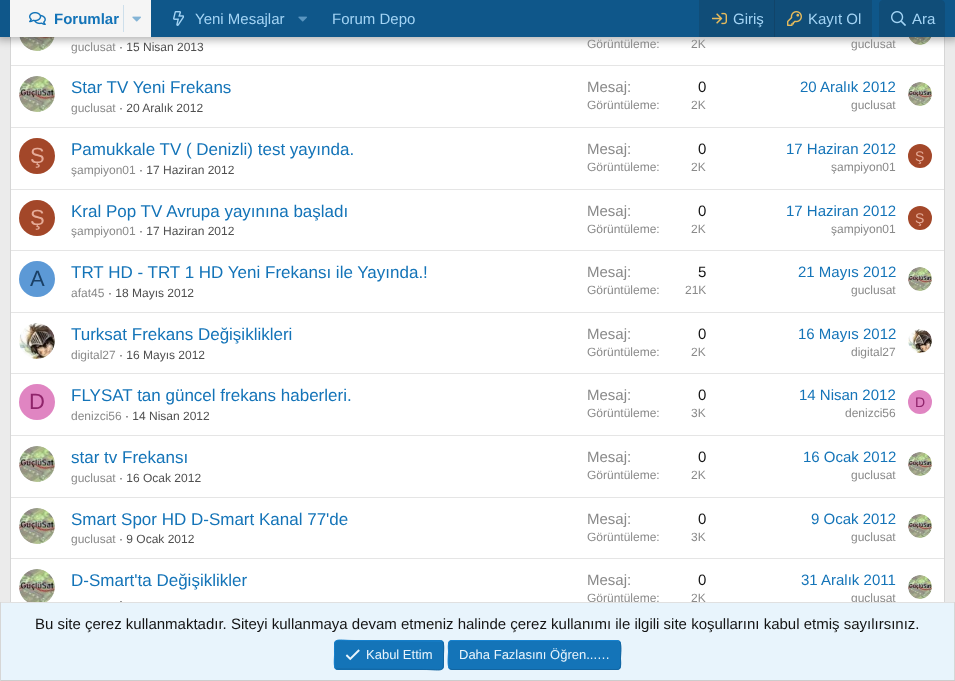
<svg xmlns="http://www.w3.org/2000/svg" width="955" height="681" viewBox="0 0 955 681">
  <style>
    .t1 { font: bold 15px Liberation Sans; fill: #1474b8; }
    .t2 { font: 15px Liberation Sans; fill: #a3d4f5; }
    .t3 { font: 12px Liberation Sans; fill: #8a8a8a; }
    .t4 { font: 12px Liberation Sans; fill: #4f4f4f; }
    .t5 { font: 17px Liberation Sans; fill: #1474b8; }
    .t6 { font: 15px Liberation Sans; fill: #8a8a8a; }
    .t7 { font: 15px Liberation Sans; fill: #141414; }
    .t8 { font: 15px Liberation Sans; fill: #1474b8; }
    .t9 { font: 22px Liberation Sans; fill: #e6ac99; }
    .t10 { font: 14px Liberation Sans; fill: #e6ac99; }
    .t11 { font: 22px Liberation Sans; fill: #1a4066; }
    .t12 { font: 22px Liberation Sans; fill: #8f246b; }
    .t13 { font: 14px Liberation Sans; fill: #8f246b; }
    .t14 { font: 13px Liberation Sans; fill: #e8f4fc; }
  </style>
  <rect width="100%" height="100%" fill="#ebebeb"/>
  <rect x="11" y="37" width="933" height="565" fill="#fff"/>
  <path d="M943.5-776.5L944.5-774V678L943.5 680.5" fill="none" stroke="#d6d6d6"/>
  <path d="M11.5 680.5L10.5 678V-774L11.5-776.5" fill="none" stroke="#d6d6d6"/>
  <image x="19" y="37" width="36" height="14" href="images/8.png"/>
  <image x="908" y="37" width="23" height="8" href="images/9.png"/>
  <rect x="-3" y="-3" width="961" height="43" fill="#0000004d" filter="blur(4px)"/>
  <rect x="0" y="0" width="955" height="37" fill="#0f578a"/>
  <rect x="10" y="0" width="141" height="37" fill="#f5f5f5"/>
  <image x="29" y="11" width="17" height="14" href="images/1.png"/>
  <text x="54" y="24" class="t1">Forumlar</text>
  <rect x="123" y="5" width="1" height="27" fill="#cedfeb"/>
  <image x="132" y="16" width="9" height="6" href="images/2.png"/>
  <image x="173" y="11" width="11" height="15" href="images/3.png"/>
  <text x="195" y="24" class="t2">Yeni Mesajlar</text>
  <image x="298" y="16" width="9" height="6" href="images/4.png"/>
  <text x="332" y="24" class="t2">Forum Depo</text>
  <rect x="699" y="0" width="173" height="37" fill="#104d78"/>
  <image x="712" y="12" width="15" height="13" href="images/5.png"/>
  <text x="733" y="24" class="t2">Giriş</text>
  <rect x="774" y="0" width="1" height="37" fill="#114469"/>
  <image x="787" y="11" width="15" height="15" href="images/6.png"/>
  <text x="808" y="24" class="t2">Kayıt Ol</text>
  <path d="M883 0H941C943 0 945 2 945 4V37H879V4C879 2 881 0 883 0Z" fill="#104d78"/>
  <image x="891" y="11" width="15" height="15" href="images/7.png"/>
  <text x="912" y="24" class="t2">Ara</text>
  <text x="71" y="51" class="t3">guclusat</text>
  <text x="119" y="51" class="t4">· 15 Nisan 2013</text>
  <text x="587" y="48" class="t3">Görüntüleme:</text>
  <text x="691" y="48" class="t3">2K</text>
  <text x="851" y="48" class="t3">guclusat</text>
  <rect x="11" y="65" width="933" height="1" fill="#e5e5e5"/>
  <image x="19" y="76" width="36" height="36" href="images/10.png"/>
  <text x="71" y="93" class="t5">Star TV Yeni Frekans</text>
  <text x="71" y="112" class="t3">guclusat</text>
  <text x="119" y="112" class="t4">· 20 Aralık 2012</text>
  <text x="587" y="92" class="t6">Mesaj:</text>
  <text x="698" y="92" class="t7">0</text>
  <text x="587" y="109" class="t3">Görüntüleme:</text>
  <text x="691" y="109" class="t3">2K</text>
  <text x="800" y="92" class="t8">20 Aralık 2012</text>
  <text x="851" y="109" class="t3">guclusat</text>
  <image x="908" y="82" width="24" height="24" href="images/11.png"/>
  <rect x="11" y="127" width="933" height="1" fill="#e5e5e5"/>
  <circle cx="37" cy="156" r="18" fill="#a34729"/>
  <text x="30" y="163" class="t9">Ş</text>
  <text x="71" y="155" class="t5">Pamukkale TV ( Denizli) test yayında.</text>
  <text x="71" y="174" class="t3">şampiyon01</text>
  <text x="139" y="174" class="t4">· 17 Haziran 2012</text>
  <text x="587" y="154" class="t6">Mesaj:</text>
  <text x="698" y="154" class="t7">0</text>
  <text x="587" y="171" class="t3">Görüntüleme:</text>
  <text x="691" y="171" class="t3">2K</text>
  <text x="786" y="154" class="t8">17 Haziran 2012</text>
  <text x="831" y="171" class="t3">şampiyon01</text>
  <circle cx="920" cy="156" r="12" fill="#a34729"/>
  <text x="915" y="161" class="t10">Ş</text>
  <rect x="11" y="189" width="933" height="1" fill="#e5e5e5"/>
  <circle cx="37" cy="218" r="18" fill="#a34729"/>
  <text x="30" y="225" class="t9">Ş</text>
  <text x="71" y="217" class="t5">Kral Pop TV Avrupa yayınına başladı</text>
  <text x="71" y="235" class="t3">şampiyon01</text>
  <text x="139" y="235" class="t4">· 17 Haziran 2012</text>
  <text x="587" y="216" class="t6">Mesaj:</text>
  <text x="698" y="216" class="t7">0</text>
  <text x="587" y="233" class="t3">Görüntüleme:</text>
  <text x="691" y="233" class="t3">2K</text>
  <text x="786" y="216" class="t8">17 Haziran 2012</text>
  <text x="831" y="233" class="t3">şampiyon01</text>
  <circle cx="920" cy="218" r="12" fill="#a34729"/>
  <text x="915" y="223" class="t10">Ş</text>
  <rect x="11" y="250" width="933" height="1" fill="#e5e5e5"/>
  <circle cx="37" cy="279" r="18" fill="#5c99d6"/>
  <text x="30" y="286" class="t11">A</text>
  <text x="71" y="278" class="t5">TRT HD - TRT 1 HD Yeni Frekansı ile Yayında.!</text>
  <text x="71" y="297" class="t3">afat45</text>
  <text x="108" y="297" class="t4">· 18 Mayıs 2012</text>
  <text x="587" y="277" class="t6">Mesaj:</text>
  <text x="698" y="277" class="t7">5</text>
  <text x="587" y="294" class="t3">Görüntüleme:</text>
  <text x="685" y="294" class="t3">21K</text>
  <text x="798" y="277" class="t8">21 Mayıs 2012</text>
  <text x="851" y="294" class="t3">guclusat</text>
  <image x="908" y="267" width="24" height="24" href="images/11.png"/>
  <rect x="11" y="312" width="933" height="1" fill="#e5e5e5"/>
  <image x="19" y="323" width="36" height="36" href="images/12.png"/>
  <text x="71" y="340" class="t5">Turksat Frekans Değişiklikleri</text>
  <text x="71" y="359" class="t3">digital27</text>
  <text x="119" y="359" class="t4">· 16 Mayıs 2012</text>
  <text x="587" y="339" class="t6">Mesaj:</text>
  <text x="698" y="339" class="t7">0</text>
  <text x="587" y="356" class="t3">Görüntüleme:</text>
  <text x="691" y="356" class="t3">2K</text>
  <text x="798" y="339" class="t8">16 Mayıs 2012</text>
  <text x="851" y="356" class="t3">digital27</text>
  <image x="908" y="329" width="24" height="24" href="images/13.png"/>
  <rect x="11" y="373" width="933" height="1" fill="#e5e5e5"/>
  <circle cx="37" cy="402" r="18" fill="#e085c2"/>
  <text x="29" y="409" class="t12">D</text>
  <text x="71" y="401" class="t5">FLYSAT tan güncel frekans haberleri.</text>
  <text x="71" y="420" class="t3">denizci56</text>
  <text x="125" y="420" class="t4">· 14 Nisan 2012</text>
  <text x="587" y="400" class="t6">Mesaj:</text>
  <text x="698" y="400" class="t7">0</text>
  <text x="587" y="417" class="t3">Görüntüleme:</text>
  <text x="691" y="417" class="t3">3K</text>
  <text x="799" y="400" class="t8">14 Nisan 2012</text>
  <text x="845" y="417" class="t3">denizci56</text>
  <circle cx="920" cy="402" r="12" fill="#e085c2"/>
  <text x="915" y="407" class="t13">D</text>
  <rect x="11" y="435" width="933" height="1" fill="#e5e5e5"/>
  <image x="19" y="446" width="36" height="36" href="images/10.png"/>
  <text x="71" y="463" class="t5">star tv Frekansı</text>
  <text x="71" y="482" class="t3">guclusat</text>
  <text x="119" y="482" class="t4">· 16 Ocak 2012</text>
  <text x="587" y="462" class="t6">Mesaj:</text>
  <text x="698" y="462" class="t7">0</text>
  <text x="587" y="479" class="t3">Görüntüleme:</text>
  <text x="691" y="479" class="t3">2K</text>
  <text x="803" y="462" class="t8">16 Ocak 2012</text>
  <text x="851" y="479" class="t3">guclusat</text>
  <image x="908" y="452" width="24" height="24" href="images/11.png"/>
  <rect x="11" y="497" width="933" height="1" fill="#e5e5e5"/>
  <image x="19" y="508" width="36" height="36" href="images/10.png"/>
  <text x="71" y="525" class="t5">Smart Spor HD D-Smart Kanal 77'de</text>
  <text x="71" y="543" class="t3">guclusat</text>
  <text x="119" y="543" class="t4">· 9 Ocak 2012</text>
  <text x="587" y="524" class="t6">Mesaj:</text>
  <text x="698" y="524" class="t7">0</text>
  <text x="587" y="541" class="t3">Görüntüleme:</text>
  <text x="691" y="541" class="t3">3K</text>
  <text x="811" y="524" class="t8">9 Ocak 2012</text>
  <text x="851" y="541" class="t3">guclusat</text>
  <image x="908" y="514" width="24" height="24" href="images/11.png"/>
  <rect x="11" y="558" width="933" height="1" fill="#e5e5e5"/>
  <image x="19" y="569" width="36" height="33" href="images/14.png"/>
  <text x="71" y="586" class="t5">D-Smart'ta Değişiklikler</text>
  <text x="119" y="605" class="t4">·</text>
  <text x="587" y="585" class="t6">Mesaj:</text>
  <text x="698" y="585" class="t7">0</text>
  <text x="587" y="602" class="t3">Görüntüleme:</text>
  <text x="691" y="602" class="t3">2K</text>
  <text x="801" y="585" class="t8">31 Aralık 2011</text>
  <text x="851" y="602" class="t3">guclusat</text>
  <image x="908" y="575" width="24" height="24" href="images/11.png"/>
  <rect x="1" y="603" width="953" height="77" fill="#e8f4fc"/>
  <rect x="0" y="602" width="955" height="1" fill="#e0e0e0"/>
  <rect x="954" y="602" width="1" height="79" fill="#d6d6d6"/>
  <rect x="0" y="680" width="955" height="1" fill="#ccc"/>
  <rect x="0" y="602" width="1" height="79" fill="#d6d6d6"/>
  <text x="35" y="629" class="t7">Bu site çerez kullanmaktadır. Siteyi kullanmaya devam etmeniz halinde çerez kullanımı ile ilgili site koşullarını kabul etmiş sayılırsınız.</text>
  <rect x="334" y="640" width="110" height="30" rx="4" fill="#1474b8"/>
  <path d="M442.5 641.5C444.5 643.5 443.5 652 443.5 655C443.5 674 445 669.5 423 669.5L336.5 669L335.5 668.5" fill="none" stroke="#1265a1"/>
  <path d="M335.5 668.5C333.5 666.5 334.5 658 334.5 655C334.5 636 333 640.5 355 640.5L441.5 641L442.5 641.5" fill="none" stroke="#1782cf"/>
  <image x="345" y="649" width="15" height="12" href="images/15.png"/>
  <text x="366" y="659" class="t14">Kabul Ettim</text>
  <rect x="448" y="640" width="173" height="30" rx="4" fill="#1474b8"/>
  <path d="M619.5 641.5C622 644 620.5 655.5 620.5 658.5C620.5 661.5 622 669.5 617 669.5H452L449.5 668.5" fill="none" stroke="#1265a1"/>
  <path d="M449.5 668.5C447 666 448.5 654.5 448.5 651.5C448.5 648.5 447 640.5 452 640.5H617L619.5 641.5" fill="none" stroke="#1782cf"/>
  <text x="459" y="659" class="t14">Daha Fazlasını Öğren...…</text>
</svg>
